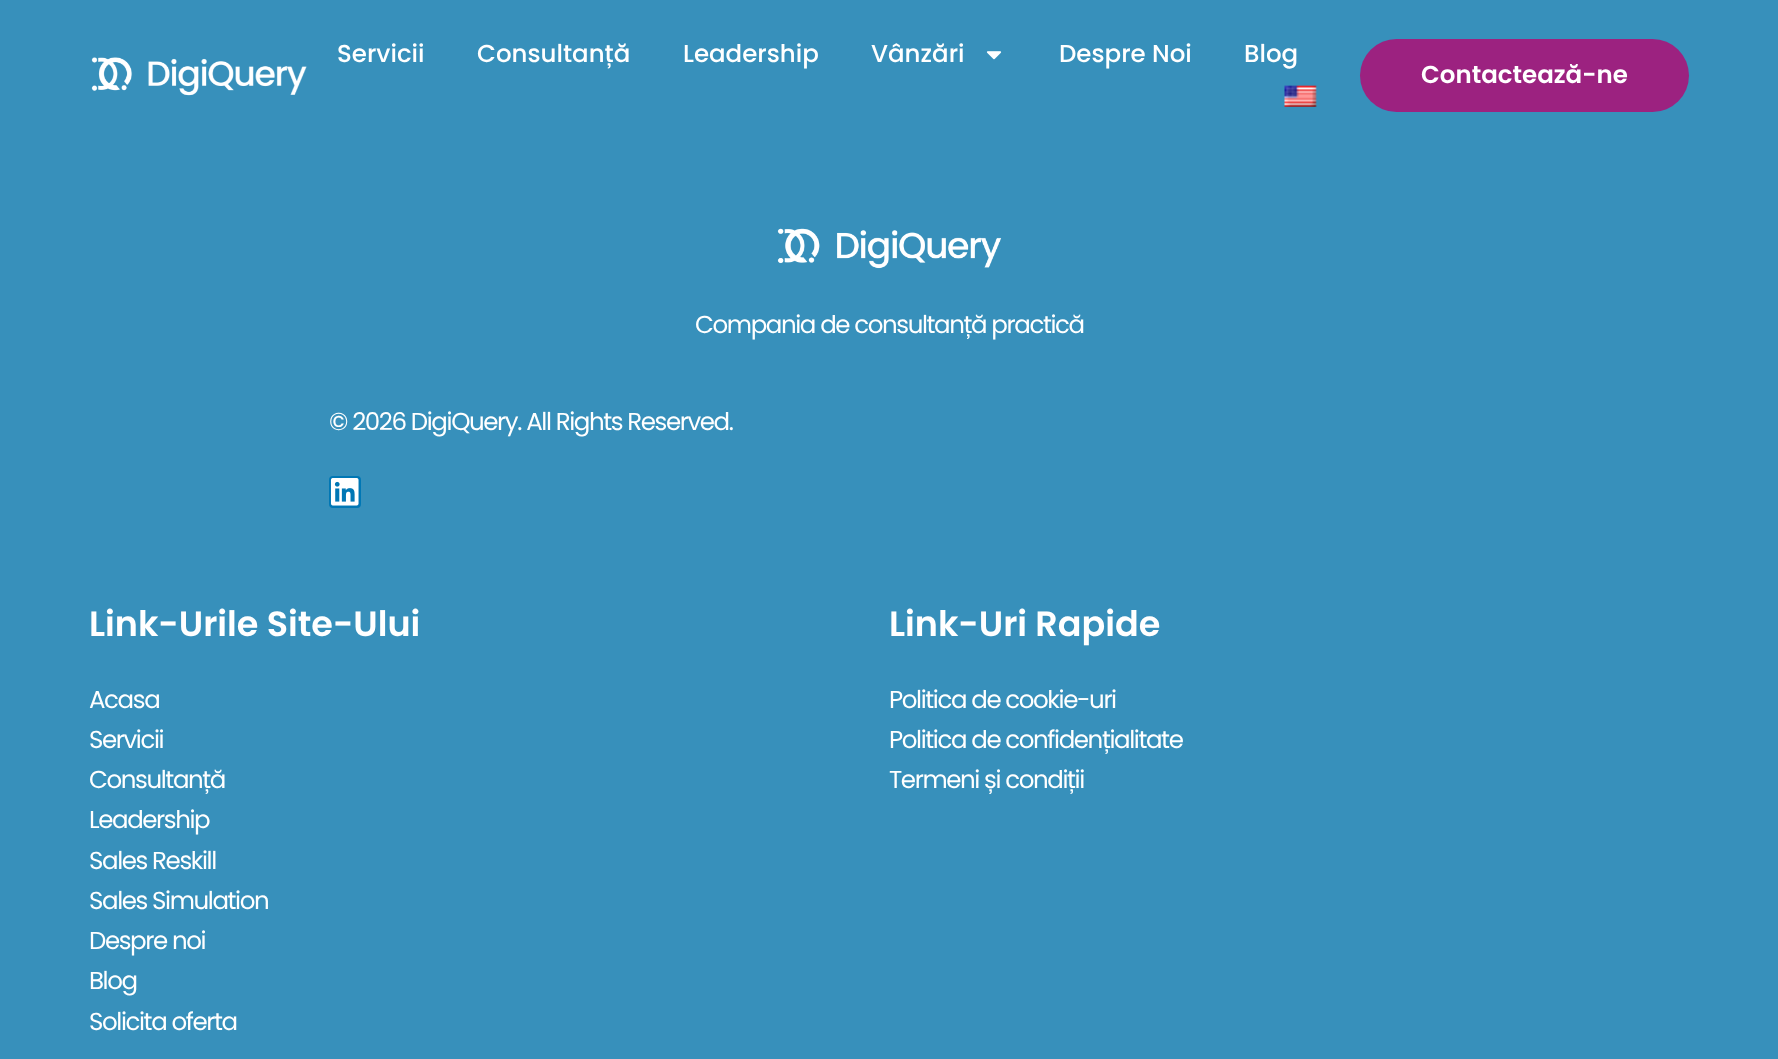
<svg xmlns="http://www.w3.org/2000/svg" width="1778" height="1059" viewBox="0 0 1778 1059">
  <style>
    .t1 { font: 500 24.5px Poppins; fill: #fff; }
    .t2 { font: 600 24.5px Poppins; fill: #fff; }
    .t3 { font: 24.5px Poppins; letter-spacing: -1.4px; fill: #fff; }
    .t4 { font: 600 35px Poppins; fill: #fff; }
  </style>
  <rect width="100%" height="100%" fill="#3790bb"/>
  <image x="91" y="57" width="216" height="39" href="images/1.png"/>
  <text x="337" y="62" class="t1">Servicii</text>
  <text x="477" y="62" class="t1">Consultanță</text>
  <text x="683" y="62" class="t1">Leadership</text>
  <text x="871" y="62" class="t1">Vânzări</text>
  <image x="986" y="51" width="16" height="9" href="images/2.png"/>
  <text x="1059" y="62" class="t1">Despre Noi</text>
  <text x="1244" y="62" class="t1">Blog</text>
  <image x="1284" y="85" width="33" height="22" href="images/3.png"/>
  <rect x="1360" y="39" width="329" height="73" rx="36.5" fill="#9c2280"/>
  <text x="1421" y="83" class="t2">Contactează-ne</text>
  <image x="777" y="228" width="225" height="41" href="images/4.png"/>
  <text x="695" y="333" class="t3">Compania de consultanță practică</text>
  <text x="329" y="430" class="t3">© 2026 DigiQuery. All Rights Reserved.</text>
  <rect x="329" y="476" width="32" height="32" rx="4" fill="#0077b5"/>
  <image x="330" y="478" width="29" height="28" href="images/5.png"/>
  <text x="89" y="636" class="t4">Link-Urile Site-Ului</text>
  <text x="89" y="708" class="t3">Acasa</text>
  <text x="89" y="748" class="t3">Servicii</text>
  <text x="89" y="788" class="t3">Consultanță</text>
  <text x="89" y="828" class="t3">Leadership</text>
  <text x="89" y="869" class="t3">Sales Reskill</text>
  <text x="89" y="909" class="t3">Sales Simulation</text>
  <text x="89" y="949" class="t3">Despre noi</text>
  <text x="89" y="989" class="t3">Blog</text>
  <text x="89" y="1030" class="t3">Solicita oferta</text>
  <text x="889" y="636" class="t4">Link-Uri Rapide</text>
  <text x="889" y="708" class="t3">Politica de cookie-uri</text>
  <text x="889" y="748" class="t3">Politica de confidențialitate</text>
  <text x="889" y="788" class="t3">Termeni și condiții</text>
</svg>
